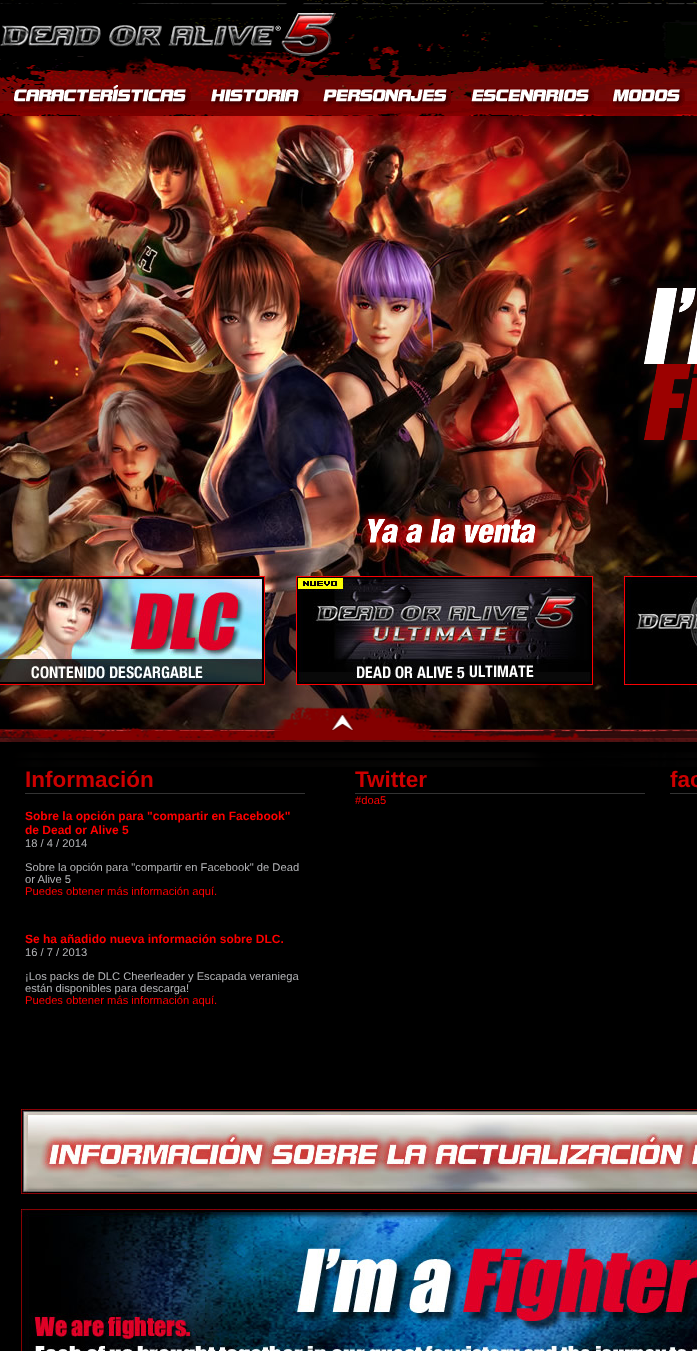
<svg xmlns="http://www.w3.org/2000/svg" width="697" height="1351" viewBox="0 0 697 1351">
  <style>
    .t1 { font: bold 22.5px Liberation Sans; fill: #c00; }
    .t2 { font: bold 12px Liberation Sans; fill: #f00; }
    .t3 { font: 11.2px Liberation Sans; fill: #b3b4b7; }
    .t4 { font: 11.2px Liberation Sans; fill: #f00; }
  </style>
  <rect width="100%" height="100%" fill="#000"/>
  <image x="0" y="0" width="697" height="116" href="images/1.png"/>
  <image x="0" y="13" width="336" height="43" href="images/2.png"/>
  <image x="13" y="88" width="178" height="19" href="images/3.png"/>
  <image x="14" y="85" width="172" height="17" href="images/4.png"/>
  <image x="210" y="88" width="94" height="19" href="images/5.png"/>
  <image x="211" y="89" width="88" height="13" href="images/6.png"/>
  <image x="322" y="88" width="129" height="19" href="images/7.png"/>
  <image x="323" y="89" width="124" height="13" href="images/8.png"/>
  <image x="471" y="88" width="123" height="19" href="images/9.png"/>
  <image x="471" y="89" width="118" height="13" href="images/10.png"/>
  <image x="612" y="88" width="73" height="19" href="images/11.png"/>
  <image x="613" y="89" width="67" height="13" href="images/12.png"/>
  <image x="0" y="116" width="697" height="613" href="images/13.png"/>
  <image x="638" y="281" width="59" height="171" href="images/14.png"/>
  <image x="360" y="511" width="183" height="40" href="images/15.png"/>
  <image x="0" y="576" width="265" height="109" href="images/16.png"/>
  <image x="296" y="576" width="297" height="109" href="images/17.png"/>
  <image x="624" y="576" width="73" height="109" href="images/18.png"/>
  <image x="0" y="707" width="697" height="60" href="images/19.png"/>
  <rect x="25" y="793" width="280" height="1" fill="#333"/>
  <text x="25" y="787" class="t1">Información</text>
  <text x="25" y="820" class="t2">Sobre la opción para "compartir en Facebook"</text>
  <text x="25" y="834" class="t2">de Dead or Alive 5</text>
  <text x="25" y="847" class="t3">18 / 4 / 2014</text>
  <text x="25" y="871" class="t3">Sobre la opción para "compartir en Facebook" de Dead</text>
  <text x="25" y="883" class="t3">or Alive 5</text>
  <text x="25" y="895" class="t4">Puedes obtener más información aquí.</text>
  <text x="25" y="943" class="t2">Se ha añadido nueva información sobre DLC.</text>
  <text x="25" y="956" class="t3">16 / 7 / 2013</text>
  <text x="25" y="980" class="t3">¡Los packs de DLC Cheerleader y Escapada veraniega</text>
  <text x="25" y="992" class="t3">están disponibles para descarga!</text>
  <text x="25" y="1004" class="t4">Puedes obtener más información aquí.</text>
  <rect x="355" y="793" width="290" height="1" fill="#333"/>
  <text x="355" y="787" class="t1">Twitter</text>
  <text x="355" y="804" class="t4">#doa5</text>
  <rect x="670" y="793" width="27" height="1" fill="#333"/>
  <text x="670" y="787" class="t1">fac</text>
  <image x="21" y="1109" width="676" height="85" href="images/20.png"/>
  <image x="21" y="1209" width="676" height="142" href="images/21.png"/>
</svg>
